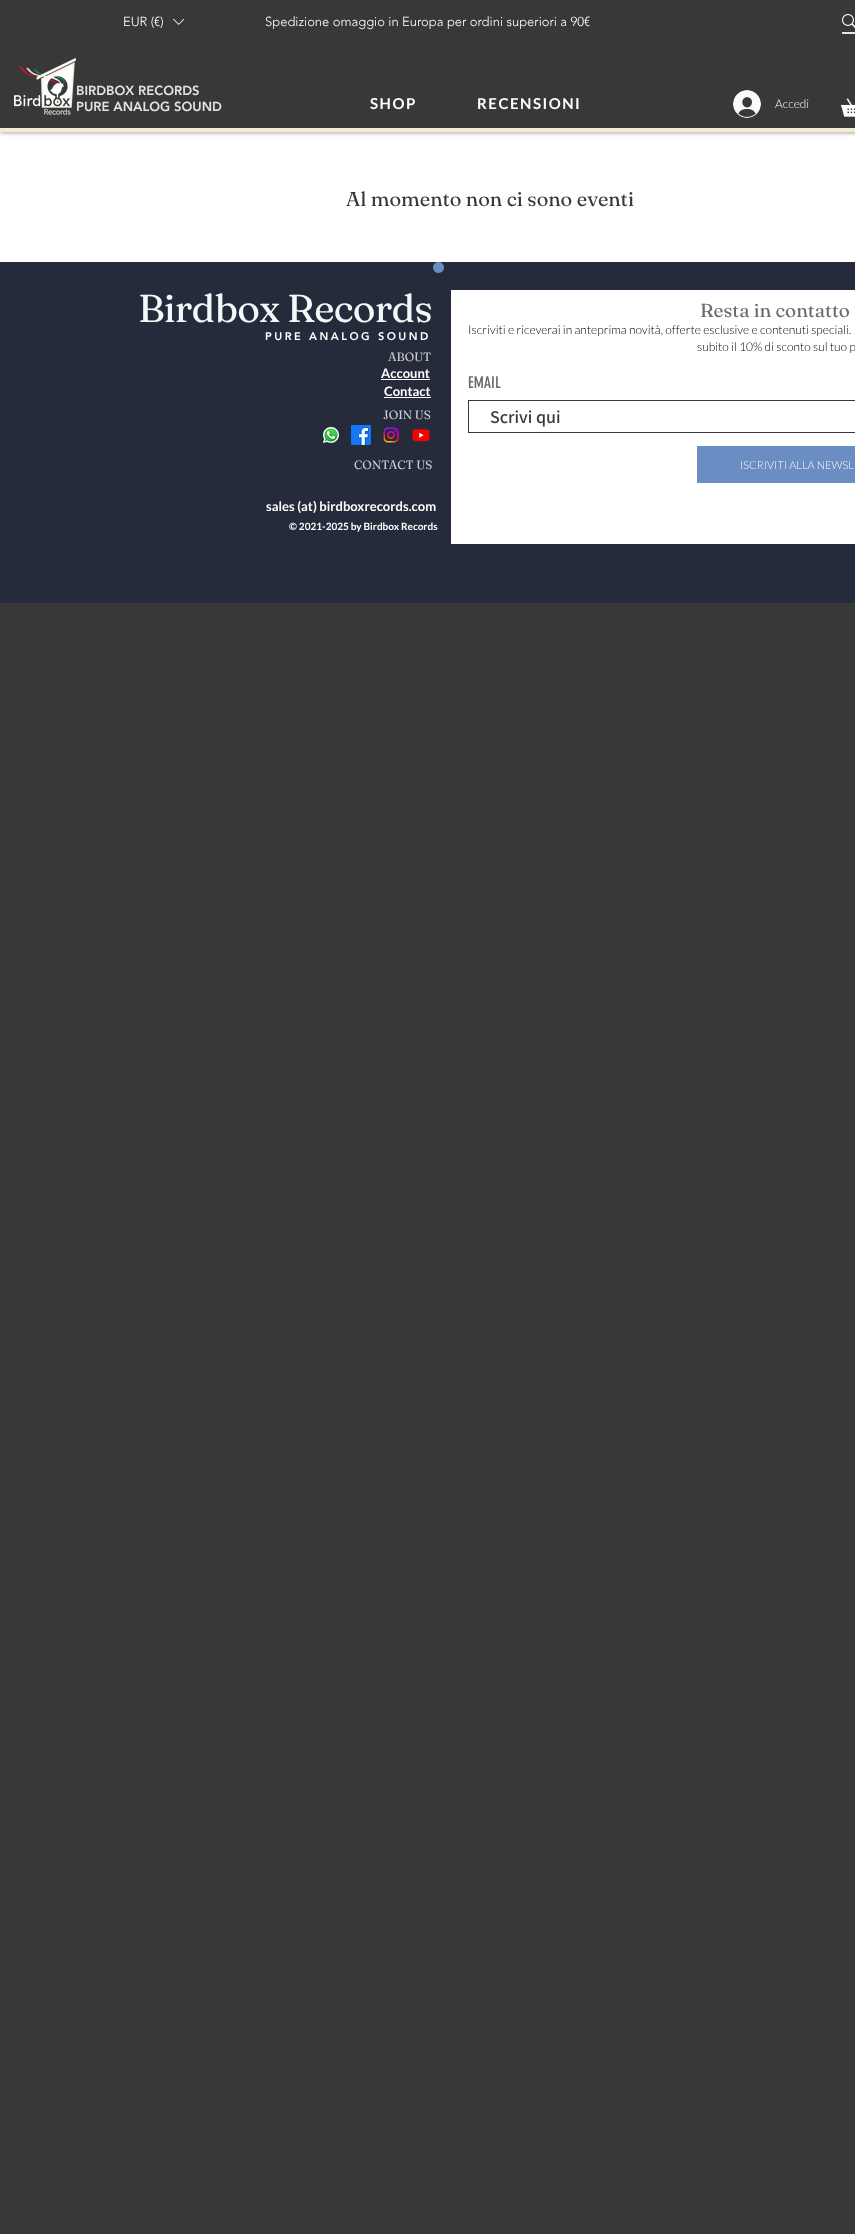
<svg xmlns="http://www.w3.org/2000/svg" width="855" height="2234" viewBox="0 0 855 2234">
  <style>
    .t1 { font: 300 13px 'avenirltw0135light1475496'; fill: #fff; }
    .t2 { font: 900 13px 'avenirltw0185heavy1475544'; fill: #e3e3e3; }
    .t3 { font: bold 15px Lato; letter-spacing: 1.5px; fill: #fff; }
    .t4 { font: 300 12px Lato; fill: #fff; }
    .t5 { font: 20px Fraunces; fill: #383838; }
    .t6 { font: 39px Fraunces; letter-spacing: -0.75px; fill: #f2faf9; }
    .t7 { font: 19px Fraunces; fill: #6a6a6a; }
    .t8 { font: 300 12px Lato; fill: #000; }
    .t9 { font: 16px 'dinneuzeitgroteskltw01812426'; fill: #6a6a6a; }
    .t10 { font: 600 18px Assistant; fill: #383838; }
    .t11 { font: 300 11px Lato; fill: #fbfaee; }
    .t12 { font: 900 11px 'avenirltw0185heavy1475544'; letter-spacing: 2.5px; fill: #fff; }
    .t13 { font: 12px Fraunces; fill: #cdcdcd; }
    .t14 { font: bold 13px Lato; fill: #fff; }
    .t15 { font: bold 10px Lato; fill: #fff; }
  </style>
  <rect width="100%" height="100%" fill="#383838"/>
  <rect x="0" y="132" width="855" height="130" fill="#fff"/>
  <rect x="0" y="0" width="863" height="132" fill="#00000080" filter="blur(2.5px)"/>
  <rect x="0" y="128" width="855" height="4" fill="#f4ebd7"/>
  <rect x="0" y="0" width="855" height="128" fill="#383838"/>
  <text x="123" y="26" class="t1">EUR (€)</text>
  <image x="173" y="18" width="12" height="7" href="images/1.png"/>
  <text x="265" y="26" class="t1">Spedizione omaggio in Europa per ordini superiori a 90€</text>
  <rect x="842" y="32" width="13" height="2" fill="#ebe5d6"/>
  <image x="842" y="14" width="13" height="14" href="images/2.png"/>
  <image x="14" y="57" width="62" height="58" href="images/3.png"/>
  <text x="76" y="95" class="t2">BIRDBOX RECORDS</text>
  <text x="76" y="111" class="t2">PURE ANALOG SOUND</text>
  <text x="370" y="109" class="t3">SHOP</text>
  <text x="477" y="109" class="t3">RECENSIONI</text>
  <image x="733" y="90" width="28" height="28" href="images/4.png"/>
  <text x="775" y="108" class="t4">Accedi</text>
  <image x="841" y="98" width="14" height="19" href="images/5.png"/>
  <text x="346" y="206" class="t5">Al momento non ci sono eventi</text>
  <rect x="0" y="262" width="855" height="341" fill="#262b3b"/>
  <image x="433" y="262" width="11" height="11" href="images/6.png"/>
  <text x="138" y="322" class="t6">Birdbox Records</text>
  <rect x="451" y="290" width="404" height="254" fill="#fff"/>
  <text x="700" y="317" class="t7">Resta in contatto</text>
  <text x="468" y="334" class="t8">Iscriviti e riceverai in anteprima novità, offerte esclusive e contenuti speciali. I</text>
  <text x="697" y="351" class="t8">subito il 10% di sconto sul tuo p</text>
  <text x="468" y="388" class="t9">EMAIL</text>
  <rect x="468.5" y="400.5" width="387" height="32" fill="none" stroke="#383838"/>
  <text x="490" y="423" class="t10">Scrivi qui</text>
  <rect x="697" y="446" width="158" height="37" fill="#6a8dc3"/>
  <text x="740" y="469" class="t11">ISCRIVITI ALLA NEWSL</text>
  <text x="265" y="340" class="t12">PURE ANALOG SOUND</text>
  <text x="388" y="361" class="t13">ABOUT</text>
  <text x="381" y="378" class="t14">Account</text>
  <rect x="381" y="379" width="49" height="1" fill="#fff"/>
  <text x="384" y="396" class="t14">Contact</text>
  <rect x="384" y="397" width="47" height="1" fill="#fff"/>
  <text x="383" y="419" class="t13">JOIN US</text>
  <image x="322" y="426" width="17" height="17" href="images/7.png"/>
  <image x="351" y="425" width="20" height="20" href="images/8.png"/>
  <image x="383" y="427" width="16" height="16" href="images/9.png"/>
  <image x="412" y="429" width="18" height="13" href="images/10.png"/>
  <text x="354" y="469" class="t13">CONTACT US</text>
  <text x="266" y="511" class="t14">sales (at) birdboxrecords.com</text>
  <text x="289" y="530" class="t15">© 2021-2025 by Birdbox Records</text>
</svg>
